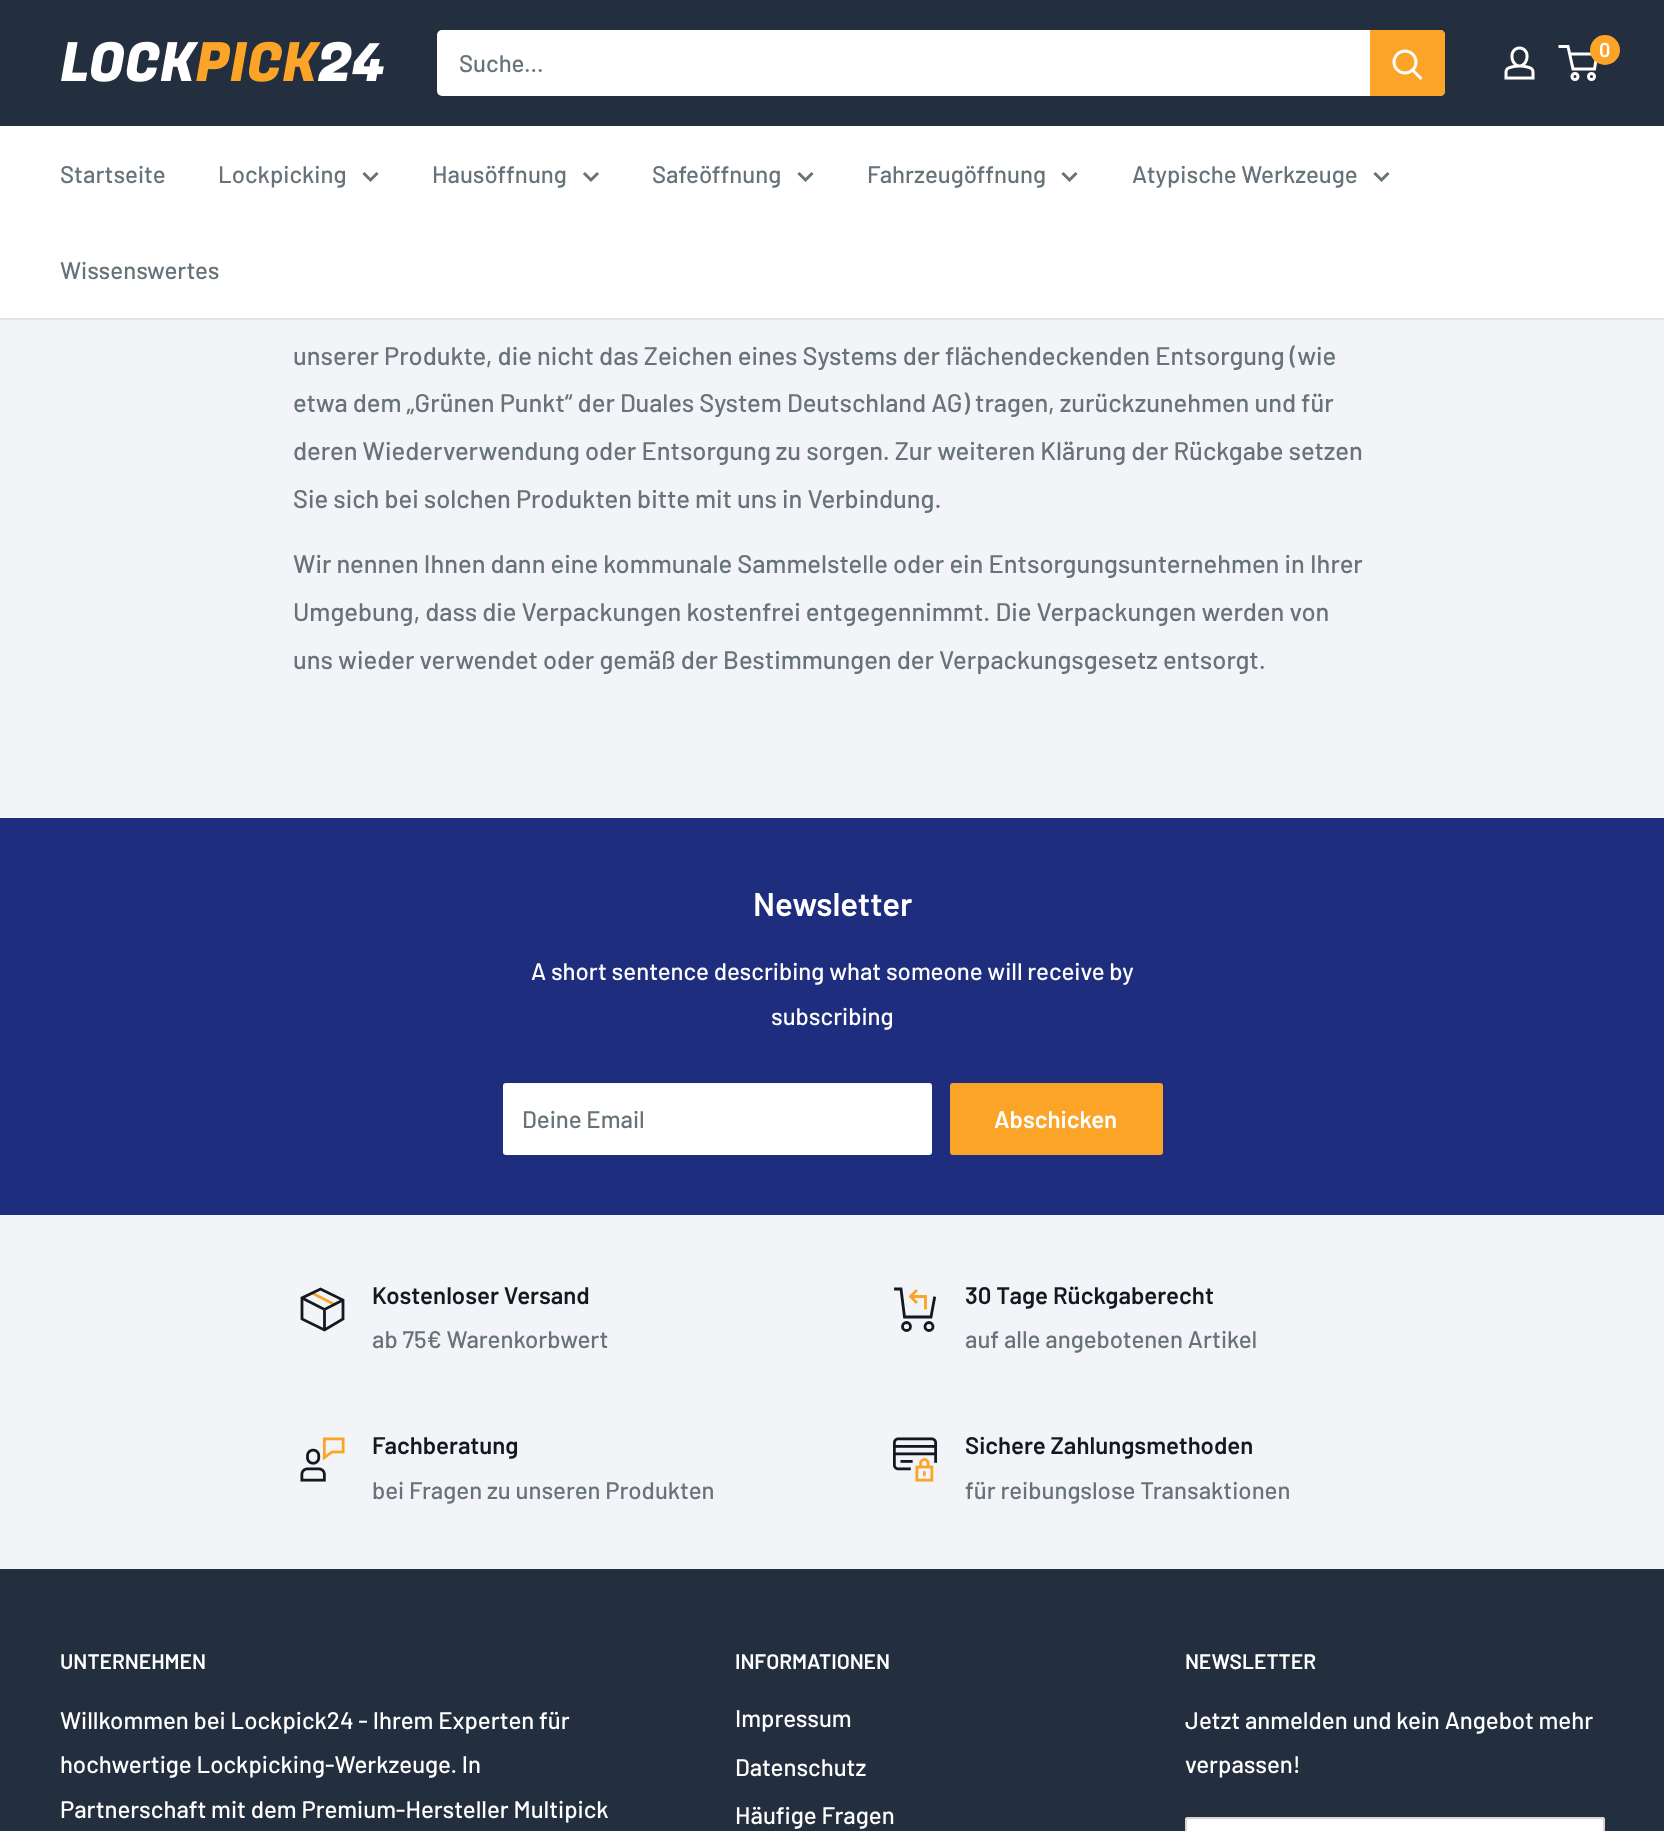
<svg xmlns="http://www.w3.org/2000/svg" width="1664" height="1831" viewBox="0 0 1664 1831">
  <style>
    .t1 { font: 600 20px Barlow; fill: #fff; }
    .t2 { font: 500 24px Barlow; fill: #677279; }
    .t3 { font: 500 25.5px Barlow; fill: #677279; }
    .t4 { font: 600 33px Barlow; fill: #fff; }
    .t5 { font: 500 24px Barlow; fill: #fff; }
    .t6 { font: 600 24px Barlow; fill: #fff; }
    .t7 { font: 600 24px Barlow; fill: #131921; }
    .t8 { font: 600 21px Barlow; fill: #fff; }
  </style>
  <rect width="100%" height="100%" fill="#f2f4f7"/>
  <rect x="0" y="0" width="1664" height="126" fill="#232e3e"/>
  <image x="61" y="41" width="323" height="41" href="images/1.png"/>
  <image x="1504" y="46" width="31" height="34" href="images/2.png"/>
  <circle cx="1575" cy="76.5" r="3" fill="none" stroke="#fff" stroke-width="3"/>
  <circle cx="1591.5" cy="76.5" r="3" fill="none" stroke="#fff" stroke-width="3"/>
  <path d="M1569.5 54H1597L1594.5 69H1573L1568 46.5H1558.5" fill="none" stroke="#fff" stroke-width="3"/>
  <circle cx="1605" cy="50" r="15" fill="#fca427"/>
  <text x="1599" y="57" class="t1">0</text>
  <rect x="437" y="30" width="1008" height="66" rx="5" fill="#fff"/>
  <text x="459" y="72" class="t2">Suche...</text>
  <path d="M1370 30H1440C1443 30 1445 32 1445 35V91C1445 94 1443 96 1440 96H1370Z" fill="#fca427"/>
  <path d="M1420.5 78L1413 70.5" fill="none" stroke="#fff" stroke-width="3" stroke-linecap="square"/>
  <circle cx="1405" cy="62" r="11" fill="none" stroke="#fff" stroke-width="3"/>
  <rect x="0" y="126" width="1664" height="192" fill="#fff"/>
  <rect x="0" y="318" width="1664" height="2" fill="#e1e3e4"/>
  <text x="60" y="183" class="t2">Startseite</text>
  <text x="218" y="183" class="t2">Lockpicking</text>
  <path d="M376.5 174L370.5 180L364.5 174" fill="none" stroke="#677279" stroke-width="3" stroke-linecap="square"/>
  <text x="432" y="183" class="t2">Hausöffnung</text>
  <path d="M597 174L591 180L585 174" fill="none" stroke="#677279" stroke-width="3" stroke-linecap="square"/>
  <text x="652" y="183" class="t2">Safeöffnung</text>
  <path d="M811.5 174L805.5 180L799.5 174" fill="none" stroke="#677279" stroke-width="3" stroke-linecap="square"/>
  <text x="867" y="183" class="t2">Fahrzeugöffnung</text>
  <path d="M1075.5 174L1069.5 180L1063.5 174" fill="none" stroke="#677279" stroke-width="3" stroke-linecap="square"/>
  <text x="1132" y="183" class="t2">Atypische Werkzeuge</text>
  <path d="M1387.5 174L1381.5 180L1375.5 174" fill="none" stroke="#677279" stroke-width="3" stroke-linecap="square"/>
  <text x="60" y="279" class="t2">Wissenswertes</text>
  <text x="293" y="365" class="t3">unserer Produkte, die nicht das Zeichen eines Systems der flächendeckenden Entsorgung (wie</text>
  <text x="293" y="412" class="t3">etwa dem „Grünen Punkt“ der Duales System Deutschland AG) tragen, zurückzunehmen und für</text>
  <text x="293" y="460" class="t3">deren Wiederverwendung oder Entsorgung zu sorgen. Zur weiteren Klärung der Rückgabe setzen</text>
  <text x="293" y="508" class="t3">Sie sich bei solchen Produkten bitte mit uns in Verbindung.</text>
  <text x="293" y="573" class="t3">Wir nennen Ihnen dann eine kommunale Sammelstelle oder ein Entsorgungsunternehmen in Ihrer</text>
  <text x="293" y="621" class="t3">Umgebung, dass die Verpackungen kostenfrei entgegennimmt. Die Verpackungen werden von</text>
  <text x="293" y="669" class="t3">uns wieder verwendet oder gemäß der Bestimmungen der Verpackungsgesetz entsorgt.</text>
  <rect x="0" y="818" width="1664" height="397" fill="#1e2d7d"/>
  <text x="753" y="916" class="t4">Newsletter</text>
  <text x="531" y="980" class="t5">A short sentence describing what someone will receive by</text>
  <text x="771" y="1025" class="t5">subscribing</text>
  <rect x="503" y="1083" width="429" height="72" rx="3" fill="#fff"/>
  <path d="M506 1084H928C930 1084 932 1086 932 1088V1086C932 1084 931 1083 929 1083H506C505 1083 503 1084 503 1085Z" fill="#e1e3e440"/>
  <text x="522" y="1128" class="t2">Deine Email</text>
  <rect x="950" y="1083" width="213" height="72" rx="3" fill="#fca427"/>
  <text x="994" y="1128" class="t6">Abschicken</text>
  <path d="M312 1293L334.5 1304.5" fill="none" stroke="#fca427" stroke-width="2.8"/>
  <path d="M343 1300L324.5 1309.5L302 1298M324.5 1309.5V1330" fill="none" stroke="#131921" stroke-width="2.8"/>
  <path d="M343 1300V1319L324.5 1330L302 1319V1298L320.5 1289Z" fill="none" stroke="#131921" stroke-width="2.8" stroke-linecap="square"/>
  <text x="372" y="1304" class="t7">Kostenloser Versand</text>
  <text x="372" y="1348" class="t2">ab 75€ Warenkorbwert</text>
  <path d="M910.5 1296.5H925.5V1309.5" fill="none" stroke="#fca427" stroke-width="2.8"/>
  <path d="M916 1302L910.5 1296.5L916 1291" fill="none" stroke="#fca427" stroke-width="2.8" stroke-linecap="square"/>
  <path d="M934.5 1298L931 1317H904.5L901 1289H895.5" fill="none" stroke="#131921" stroke-width="2.8" stroke-linecap="square"/>
  <circle cx="906.5" cy="1326.5" r="4" fill="none" stroke="#131921" stroke-width="2.8"/>
  <circle cx="929" cy="1326.5" r="4" fill="none" stroke="#131921" stroke-width="2.8"/>
  <text x="965" y="1304" class="t7">30 Tage Rückgaberecht</text>
  <text x="965" y="1348" class="t2">auf alle angebotenen Artikel</text>
  <image x="300" y="1437" width="45" height="45" href="images/3.png"/>
  <text x="372" y="1454" class="t7">Fachberatung</text>
  <text x="372" y="1499" class="t2">bei Fragen zu unseren Produkten</text>
  <image x="893" y="1437" width="45" height="45" href="images/4.png"/>
  <text x="965" y="1454" class="t7">Sichere Zahlungsmethoden</text>
  <text x="965" y="1499" class="t2">für reibungslose Transaktionen</text>
  <rect x="0" y="1569" width="1664" height="262" fill="#232e3e"/>
  <text x="60" y="1669" class="t8">UNTERNEHMEN</text>
  <text x="60" y="1729" class="t5">Willkommen bei Lockpick24 - Ihrem Experten für</text>
  <text x="60" y="1773" class="t5">hochwertige Lockpicking-Werkzeuge. In</text>
  <text x="60" y="1818" class="t5">Partnerschaft mit dem Premium-Hersteller Multipick</text>
  <text x="735" y="1669" class="t8">INFORMATIONEN</text>
  <text x="735" y="1727" class="t5">Impressum</text>
  <text x="735" y="1776" class="t5">Datenschutz</text>
  <text x="735" y="1824" class="t5">Häufige Fragen</text>
  <text x="1185" y="1669" class="t8">NEWSLETTER</text>
  <text x="1185" y="1729" class="t5">Jetzt anmelden und kein Angebot mehr</text>
  <text x="1185" y="1773" class="t5">verpassen!</text>
  <rect x="1185" y="1817" width="420" height="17" rx="3" fill="#fff"/>
  <path d="M1188 1820H1602C1603 1820 1604 1820 1604 1821C1604 1820 1604 1818 1602 1818H1188L1187 1819V1820Z" fill="#f8f8f8"/>
  <rect x="1186" y="1818" width="418" height="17" rx="2" fill="none" stroke="#d4d6d8" stroke-width="2"/>
</svg>
